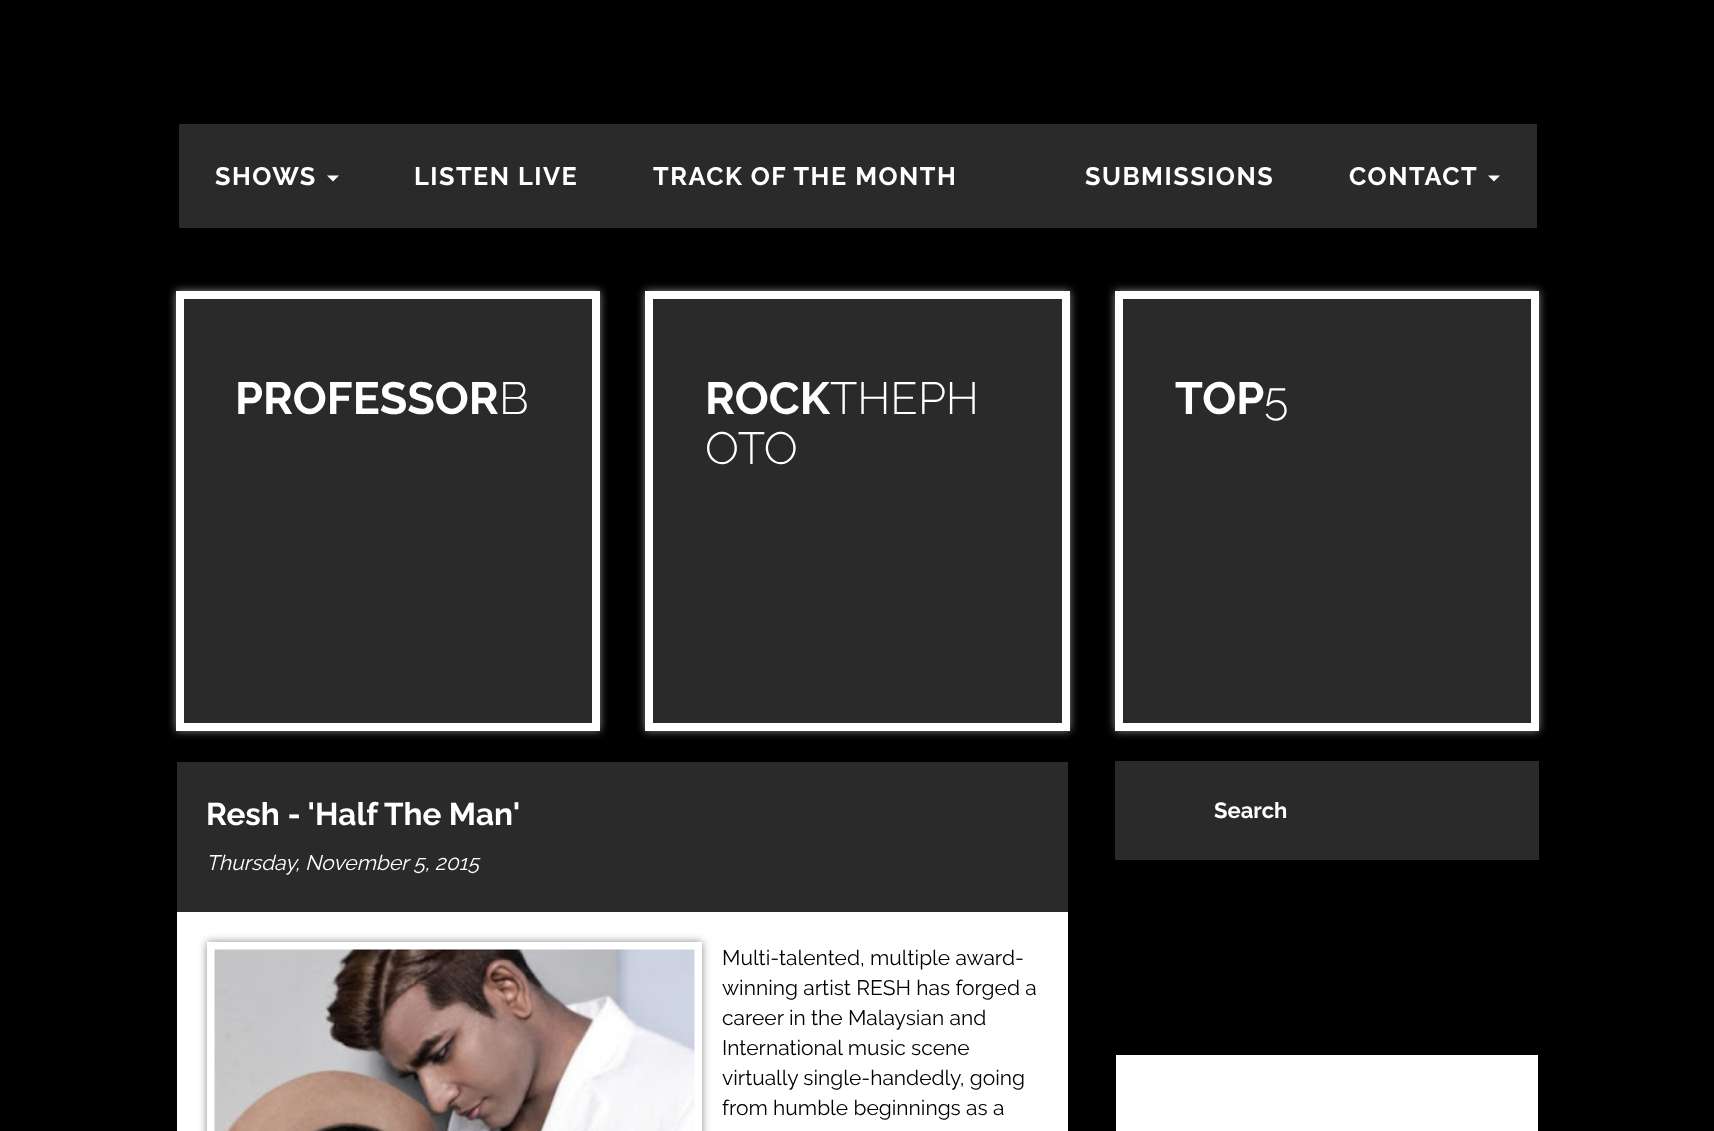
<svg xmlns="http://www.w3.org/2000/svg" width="1714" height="1131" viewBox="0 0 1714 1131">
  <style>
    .t1 { font: bold 25.25px Raleway; letter-spacing: 1.5px; fill: #fff; }
    .t2 { font: bold 45px Raleway; fill: #fff; }
    .t3 { font: 300 45px Raleway; fill: #fff; }
    .t4 { font: bold 31.5px Raleway; fill: #fff; }
    .t5 { font: italic 21px Raleway; fill: #fff; }
    .t6 { font: 21px Raleway; fill: #000; }
    .t7 { font: bold 22px Raleway; fill: #fff; }
  </style>
  <defs>
    <clipPath id="clip1"><path d="M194 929H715V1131H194ZM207 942H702V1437H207Z" clip-rule="evenodd"/></clipPath>
  </defs>
  <rect width="100%" height="100%" fill="#000"/>
  <rect x="179" y="124" width="1358" height="104" fill="#2a2a2a"/>
  <text x="215" y="185" class="t1">SHOWS</text>
  <path d="M327 175.5H339L333 181.5Z" fill="#fff"/>
  <text x="414" y="185" class="t1">LISTEN LIVE</text>
  <text x="653" y="185" class="t1">TRACK OF THE MONTH</text>
  <text x="1085" y="185" class="t1">SUBMISSIONS</text>
  <text x="1349" y="185" class="t1">CONTACT</text>
  <path d="M1488 175.5H1500L1494 181.5Z" fill="#fff"/>
  <rect x="176" y="291" width="424" height="440" fill="#888" filter="blur(4px)"/>
  <rect x="180" y="295" width="416" height="432" fill="#2a2a2a" stroke="#fff" stroke-width="8"/>
  <text x="235" y="414" class="t2">PROFESSOR</text>
  <text x="499" y="414" class="t3">B</text>
  <rect x="645" y="291" width="425" height="440" fill="#888" filter="blur(4px)"/>
  <rect x="649" y="295" width="417" height="432" fill="#2a2a2a" stroke="#fff" stroke-width="8"/>
  <text x="705" y="414" class="t2">ROCK</text>
  <text x="830" y="414" class="t3">THEPH</text>
  <text x="705" y="464" class="t3">OTO</text>
  <rect x="1115" y="291" width="424" height="440" fill="#888" filter="blur(4px)"/>
  <rect x="1119" y="295" width="416" height="432" fill="#2a2a2a" stroke="#fff" stroke-width="8"/>
  <text x="1175" y="414" class="t2">TOP</text>
  <text x="1264" y="414" class="t3">5</text>
  <rect x="177" y="762" width="891" height="150" fill="#2a2a2a"/>
  <text x="206" y="825" class="t4">Resh - 'Half The Man'</text>
  <text x="206" y="870" class="t5">Thursday, November 5, 2015</text>
  <rect x="177" y="912" width="891" height="219" fill="#fff"/>
  <g clip-path="url(#clip1)">
    <rect x="207" y="942" width="495" height="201" fill="#888" filter="blur(4px)"/>
  </g>
  <image x="214" y="949" width="481" height="182" href="images/1.png"/>
  <text x="722" y="965" class="t6">Multi-talented, multiple award-</text>
  <text x="722" y="995" class="t6">winning artist RESH has forged a</text>
  <text x="722" y="1025" class="t6">career in the Malaysian and</text>
  <text x="722" y="1055" class="t6">International music scene</text>
  <text x="722" y="1085" class="t6">virtually single-handedly, going</text>
  <text x="722" y="1115" class="t6">from humble beginnings as a</text>
  <rect x="1115" y="761" width="424" height="99" fill="#2a2a2a"/>
  <text x="1214" y="818" class="t7">Search</text>
  <rect x="1116" y="1055" width="422" height="76" fill="#fff"/>
</svg>
